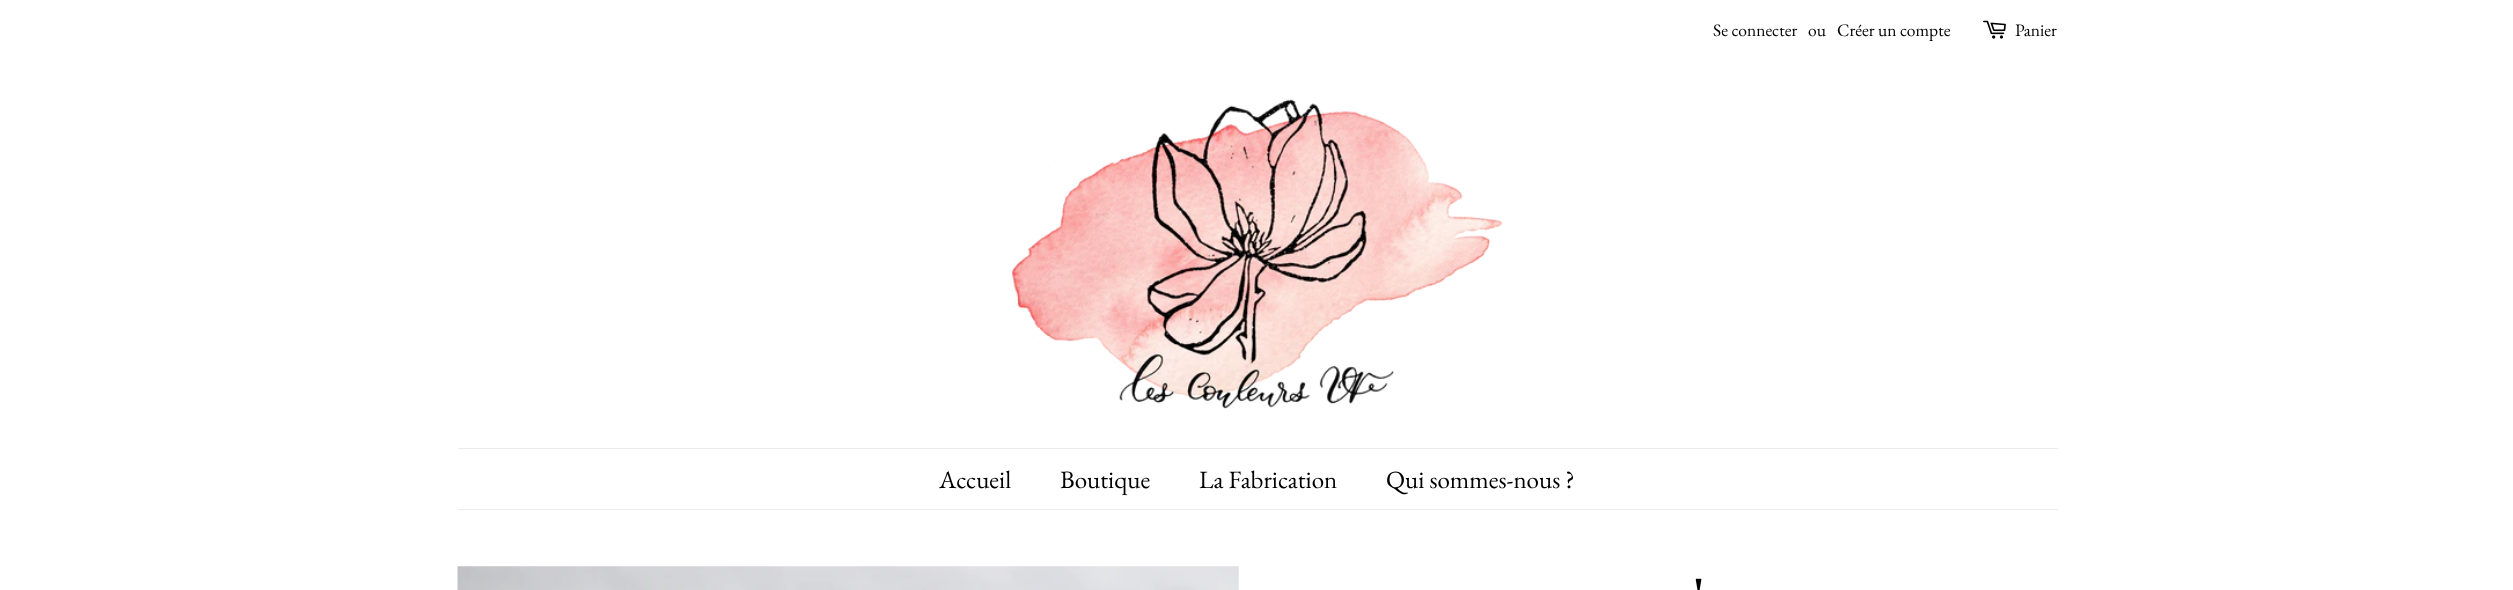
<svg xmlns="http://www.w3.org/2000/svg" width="2513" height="590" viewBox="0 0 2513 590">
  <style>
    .t1 { font: 17.5px EB Garamond; fill: #000; }
    .t2 { font: 25px EB Garamond; fill: #000; }
    .t3 { font: bold 40px Platypi; fill: #000; }
  </style>
  <rect width="100%" height="100%" fill="#fff"/>
  <text x="1713" y="36" class="t1">Se connecter</text>
  <text x="1808" y="36" class="t1">ou</text>
  <text x="1837" y="36" class="t1">Créer un compte</text>
  <image x="1983" y="20" width="23" height="19" href="images/1.png"/>
  <text x="2015" y="36" class="t1">Panier</text>
  <image x="1011" y="99" width="492" height="310" href="images/2.png"/>
  <rect x="458" y="448" width="1600" height="1" fill="#ebebeb"/>
  <rect x="458" y="509" width="1600" height="1" fill="#ebebeb"/>
  <text x="939" y="488" class="t2">Accueil</text>
  <text x="1060" y="488" class="t2">Boutique</text>
  <text x="1199" y="488" class="t2">La Fabrication</text>
  <text x="1386" y="488" class="t2">Qui sommes-nous ?</text>
  <image x="457" y="566" width="782" height="24" href="images/3.png"/>
  <text x="1694" y="608" class="t3">'</text>
</svg>
